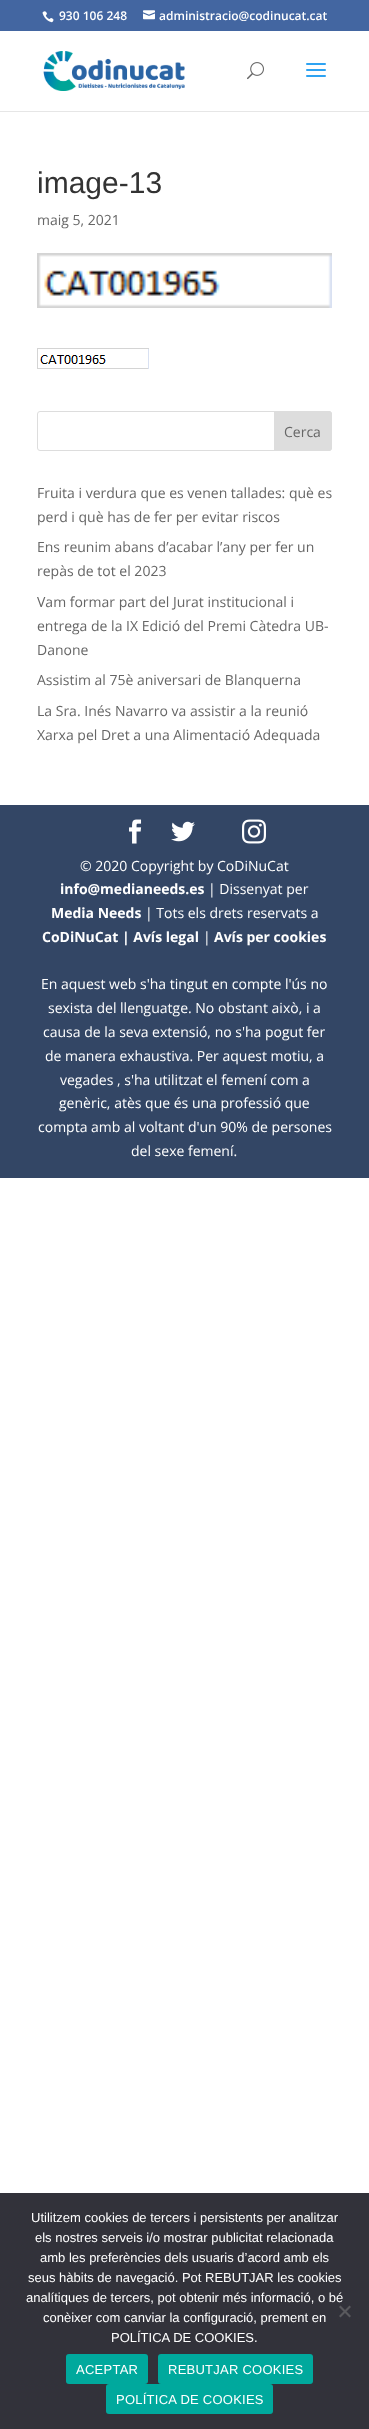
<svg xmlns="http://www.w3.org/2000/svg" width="369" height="2429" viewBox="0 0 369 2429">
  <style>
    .t1 { font: 600 12px Open Sans; fill: #fff; }
    .t2 { font: 30px Liberation Sans; fill: #333; }
    .t3 { font: 14px Open Sans; fill: #666; }
    .t4 { font: 14px Open Sans; fill: #fff; }
    .t5 { font: bold 14px Open Sans; fill: #fff; }
    .t6 { font: 13px Liberation Sans; fill: #fff; }
    .t7 { font: 13px Liberation Sans; letter-spacing: 0.25px; fill: #fff; }
  </style>
  <rect width="100%" height="100%" fill="#fff"/>
  <rect x="0" y="0" width="369" height="31" fill="#4366a1"/>
  <image x="42" y="11" width="12" height="12" href="images/1.png"/>
  <text x="59" y="20" class="t1">930 106 248</text>
  <image x="143" y="10" width="12" height="10" href="images/2.png"/>
  <text x="159" y="20" class="t1">administracio@codinucat.cat</text>
  <rect x="0" y="111" width="369" height="1" fill="#e6e6e6"/>
  <image x="43" y="51" width="142" height="40" href="images/3.png"/>
  <image x="247" y="62" width="17" height="18" href="images/4.png"/>
  <image x="306" y="63" width="20" height="14" href="images/5.png"/>
  <text x="37" y="193" class="t2">image-13</text>
  <text x="37" y="225" class="t3">maig 5, 2021</text>
  <image x="37" y="253" width="295" height="55" href="images/6.png"/>
  <image x="37" y="348" width="112" height="21" href="images/7.png"/>
  <rect x="37.5" y="411.5" width="294" height="39" rx="2.5" fill="none" stroke="#ddd"/>
  <path d="M274.5 411.5H329C330.5 411.5 331.5 412.5 331.5 414V448C331.5 449.5 330.5 450.5 329 450.5H274.5Z" fill="#ddd" stroke="#ddd"/>
  <text x="284" y="437" class="t3">Cerca</text>
  <text x="37" y="498" class="t3">Fruita i verdura que es venen tallades: què es</text>
  <text x="37" y="522" class="t3">perd i què has de fer per evitar riscos</text>
  <text x="37" y="552" class="t3">Ens reunim abans d’acabar l’any per fer un</text>
  <text x="37" y="576" class="t3">repàs de tot el 2023</text>
  <text x="37" y="607" class="t3">Vam formar part del Jurat institucional i</text>
  <text x="37" y="631" class="t3">entrega de la IX Edició del Premi Càtedra UB-</text>
  <text x="37" y="655" class="t3">Danone</text>
  <text x="37" y="685" class="t3">Assistim al 75è aniversari de Blanquerna</text>
  <text x="37" y="716" class="t3">La Sra. Inés Navarro va assistir a la reunió</text>
  <text x="37" y="740" class="t3">Xarxa pel Dret a una Alimentació Adequada</text>
  <rect x="0" y="805" width="369" height="373" fill="#334665"/>
  <image x="129" y="819" width="13" height="25" href="images/8.png"/>
  <image x="171" y="821" width="24" height="21" href="images/9.png"/>
  <image x="242" y="819" width="24" height="25" href="images/10.png"/>
  <text x="80" y="871" class="t4">© 2020 Copyright by CoDiNuCat</text>
  <text x="60" y="894" class="t5">info@medianeeds.es</text>
  <text x="208" y="894" class="t4">| Dissenyat per</text>
  <text x="51" y="918" class="t5">Media Needs</text>
  <text x="145" y="918" class="t4">| Tots els drets reservats a</text>
  <text x="42" y="942" class="t5">CoDiNuCat | Avís legal</text>
  <text x="203" y="942" class="t4">|</text>
  <text x="214" y="942" class="t5">Avís per cookies</text>
  <text x="41" y="989" class="t4">En aquest web s'ha tingut en compte l'ús no</text>
  <text x="48" y="1013" class="t4">sexista del llenguatge. No obstant això, i a</text>
  <text x="43" y="1037" class="t4">causa de la seva extensió, no s'ha pogut fer</text>
  <text x="45" y="1061" class="t4">de manera exhaustiva. Per aquest motiu, a</text>
  <text x="60" y="1085" class="t4">vegades , s'ha utilitzat el femení com a</text>
  <text x="59" y="1108" class="t4">genèric, atès que és una professió que</text>
  <text x="38" y="1132" class="t4">compta amb al voltant d'un 90% de persones</text>
  <text x="131" y="1156" class="t4">del sexe femení.</text>
  <rect x="0" y="2193" width="369" height="236" fill="#32323a"/>
  <text x="31" y="2222" class="t6">Utilitzem cookies de tercers i persistents per analitzar</text>
  <text x="35" y="2242" class="t6">els nostres serveis i/o mostrar publicitat relacionada</text>
  <text x="40" y="2262" class="t6">amb les preferències dels usuaris d’acord amb els</text>
  <text x="28" y="2282" class="t6">seus hàbits de navegació. Pot REBUTJAR les cookies</text>
  <text x="26" y="2302" class="t6">analítiques de tercers, pot obtenir més informació, o bé</text>
  <text x="43" y="2322" class="t6">conèixer com canviar la configuració, prement en</text>
  <text x="111" y="2342" class="t6">POLÍTICA DE COOKIES.</text>
  <path d="M349.5 2305.5L351 2307L340.5 2317.5L339 2316Z" fill="#59595d"/>
  <path d="M339 2307L340.5 2305.5L351 2316L349.5 2317.5Z" fill="#59595d"/>
  <rect x="66" y="2354" width="82" height="30" rx="3" fill="#00a99d"/>
  <text x="76" y="2374" class="t7">ACEPTAR</text>
  <rect x="158" y="2354" width="155" height="30" rx="3" fill="#00a99d"/>
  <text x="168" y="2374" class="t7">REBUTJAR COOKIES</text>
  <rect x="106" y="2384" width="167" height="30" rx="3" fill="#00a99d"/>
  <text x="116" y="2404" class="t7">POLÍTICA DE COOKIES</text>
</svg>
